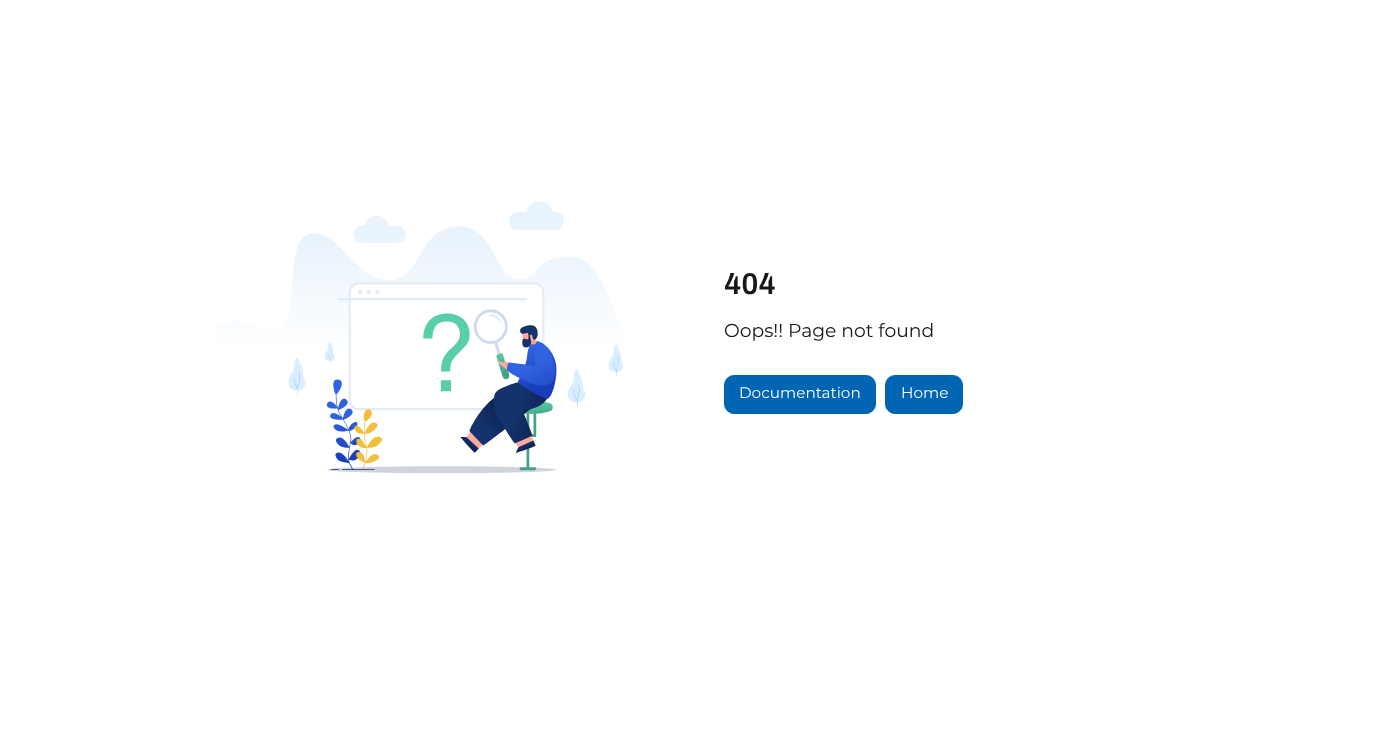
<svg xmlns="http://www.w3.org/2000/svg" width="1385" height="756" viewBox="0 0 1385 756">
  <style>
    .t1 { font: 600 30px Archivo; fill: #18181b; }
    .t2 { font: 18.75px Montserrat; fill: #18181b; }
    .t3 { font: 15.25px Montserrat; fill: #fff; }
  </style>
  <rect width="100%" height="100%" fill="#fff"/>
  <image x="216" y="201" width="407" height="273" href="images/1.png"/>
  <text x="724" y="294" class="t1">404</text>
  <text x="724" y="337" class="t2">Oops!! Page not found</text>
  <rect x="724.5" y="375.5" width="151" height="38" rx="9.5" fill="#0065b3" stroke="#0065b3"/>
  <text x="739" y="398" class="t3">Documentation</text>
  <rect x="885.5" y="375.5" width="77" height="38" rx="9.5" fill="#0065b3" stroke="#0065b3"/>
  <text x="901" y="398" class="t3">Home</text>
</svg>
